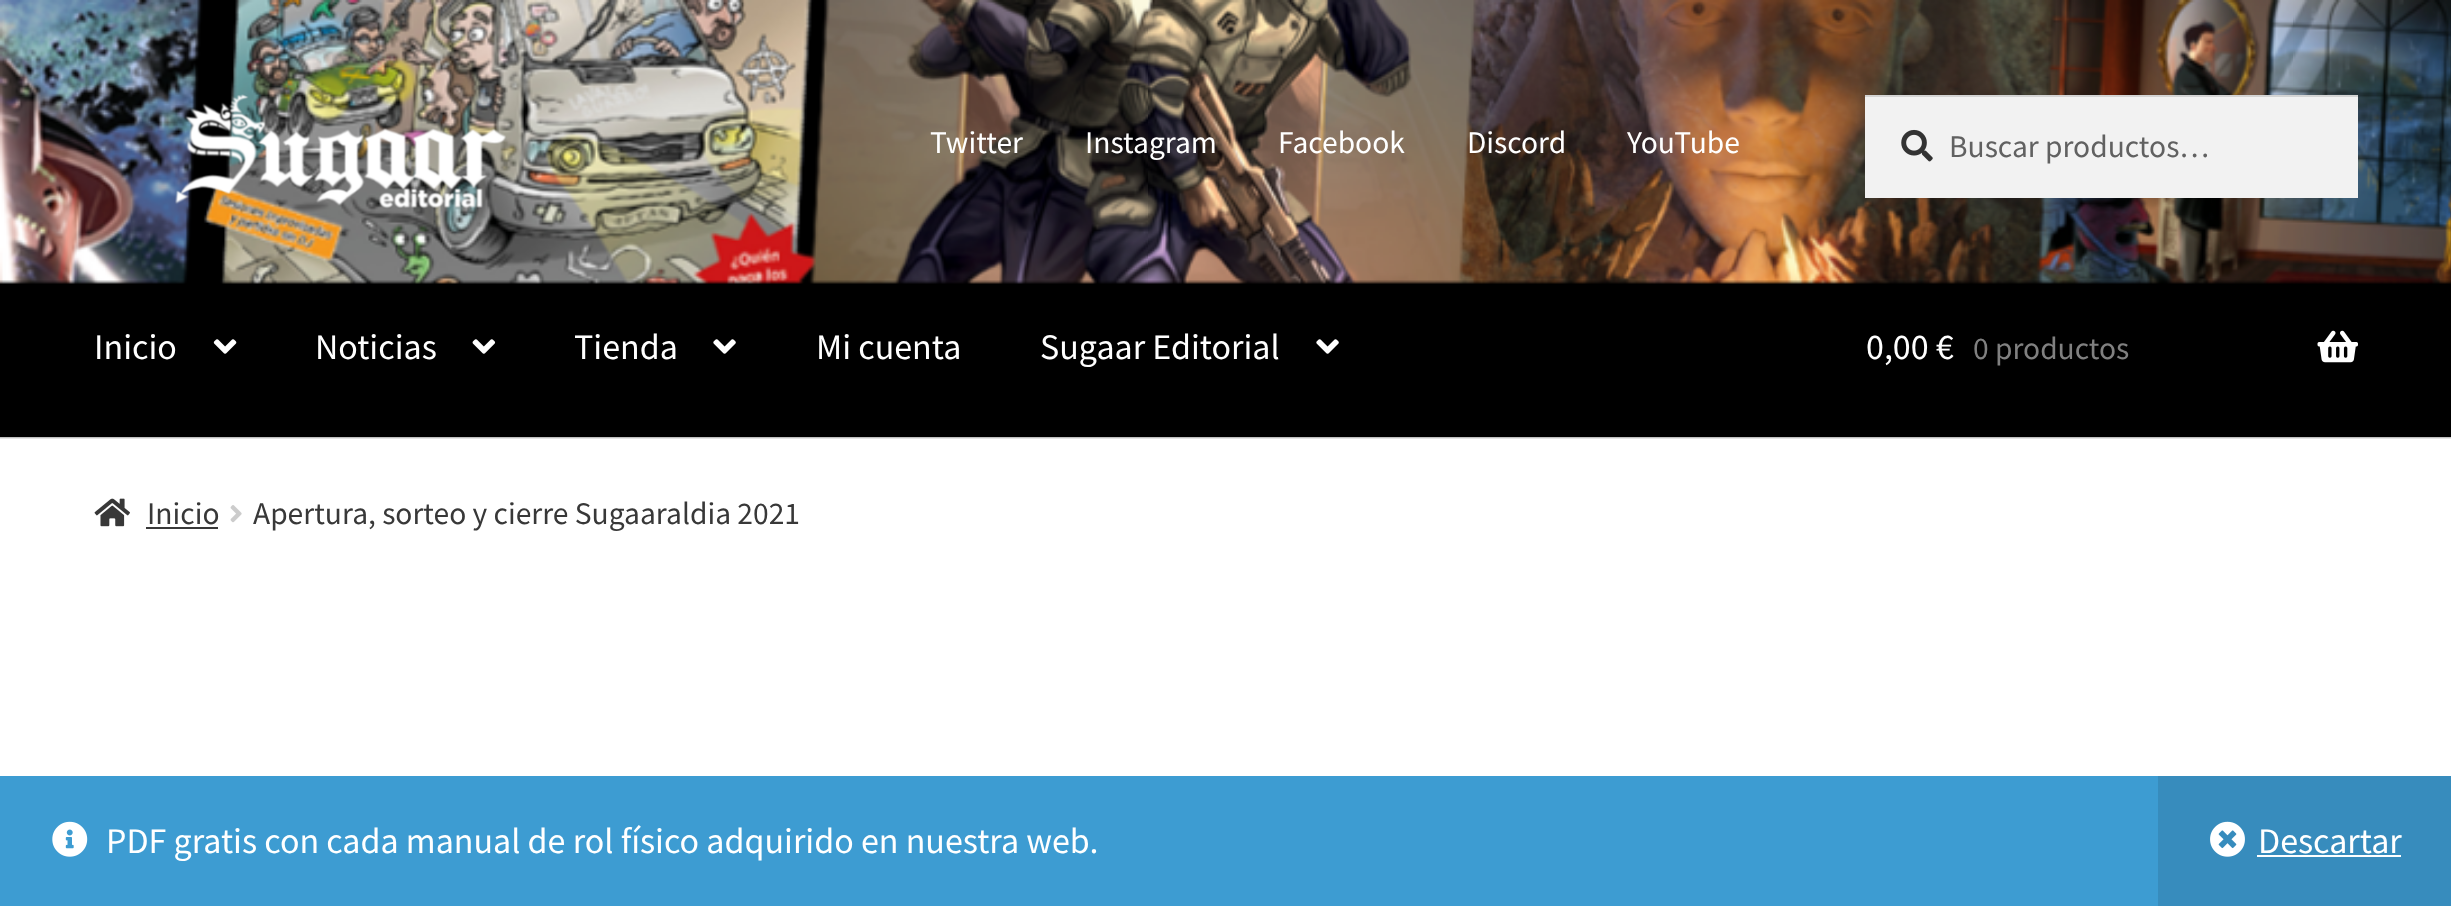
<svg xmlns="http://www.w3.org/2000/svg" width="2451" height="906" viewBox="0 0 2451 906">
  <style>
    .t1 { font: 31.5px Source Sans Pro; fill: #fff; }
    .t2 { font: 31.5px Source Sans Pro; fill: #616161; }
    .t3 { font: 36px Source Sans Pro; fill: #fff; }
    .t4 { font: 31.5px Source Sans Pro; fill: #808080; }
    .t5 { font: 31.5px Source Sans Pro; fill: #383838; }
  </style>
  <rect width="100%" height="100%" fill="#fff"/>
  <rect x="0" y="0" width="2451" height="437" fill="#000"/>
  <image x="0" y="0" width="2451" height="439" href="images/1.png"/>
  <image x="175" y="94" width="331" height="115" href="images/2.png"/>
  <text x="930" y="153" class="t1">Twitter</text>
  <text x="1085" y="153" class="t1">Instagram</text>
  <text x="1278" y="153" class="t1">Facebook</text>
  <text x="1467" y="153" class="t1">Discord</text>
  <text x="1627" y="153" class="t1">YouTube</text>
  <rect x="1865" y="97" width="493" height="101" fill="#f2f2f2"/>
  <image x="1901" y="129" width="32" height="33" href="images/3.png"/>
  <rect x="1865" y="95" width="493" height="2" fill="#d4d4d4"/>
  <text x="1949" y="157" class="t2">Buscar productos…</text>
  <text x="94" y="359" class="t3">Inicio</text>
  <image x="213" y="339" width="24" height="15" href="images/4.png"/>
  <text x="315" y="359" class="t3">Noticias</text>
  <image x="472" y="339" width="24" height="15" href="images/5.png"/>
  <text x="574" y="359" class="t3">Tienda</text>
  <image x="713" y="339" width="23" height="15" href="images/6.png"/>
  <text x="816" y="359" class="t3">Mi cuenta</text>
  <text x="1040" y="359" class="t3">Sugaar Editorial</text>
  <image x="1316" y="339" width="23" height="15" href="images/6.png"/>
  <text x="1866" y="359" class="t3">0,00 €</text>
  <text x="1973" y="359" class="t4">0 productos</text>
  <image x="2317" y="330" width="41" height="33" href="images/7.png"/>
  <image x="94" y="498" width="36" height="29" href="images/8.png"/>
  <text x="147" y="524" class="t5">Inicio</text>
  <rect x="146" y="527" width="72" height="2" fill="#383838"/>
  <image x="230" y="505" width="12" height="18" href="images/9.png"/>
  <text x="253" y="524" class="t5">Apertura, sorteo y cierre Sugaaraldia 2021</text>
  <rect x="0" y="776" width="2158" height="130" fill="#3d9cd2"/>
  <image x="52" y="821" width="36" height="36" href="images/10.png"/>
  <text x="106" y="853" class="t3">PDF gratis con cada manual de rol físico adquirido en nuestra web.</text>
  <rect x="2158" y="776" width="293" height="130" fill="#378cbd"/>
  <image x="2210" y="821" width="35" height="36" href="images/11.png"/>
  <text x="2258" y="853" class="t3">Descartar</text>
  <rect x="2257" y="855" width="144" height="2" fill="#fff"/>
</svg>
